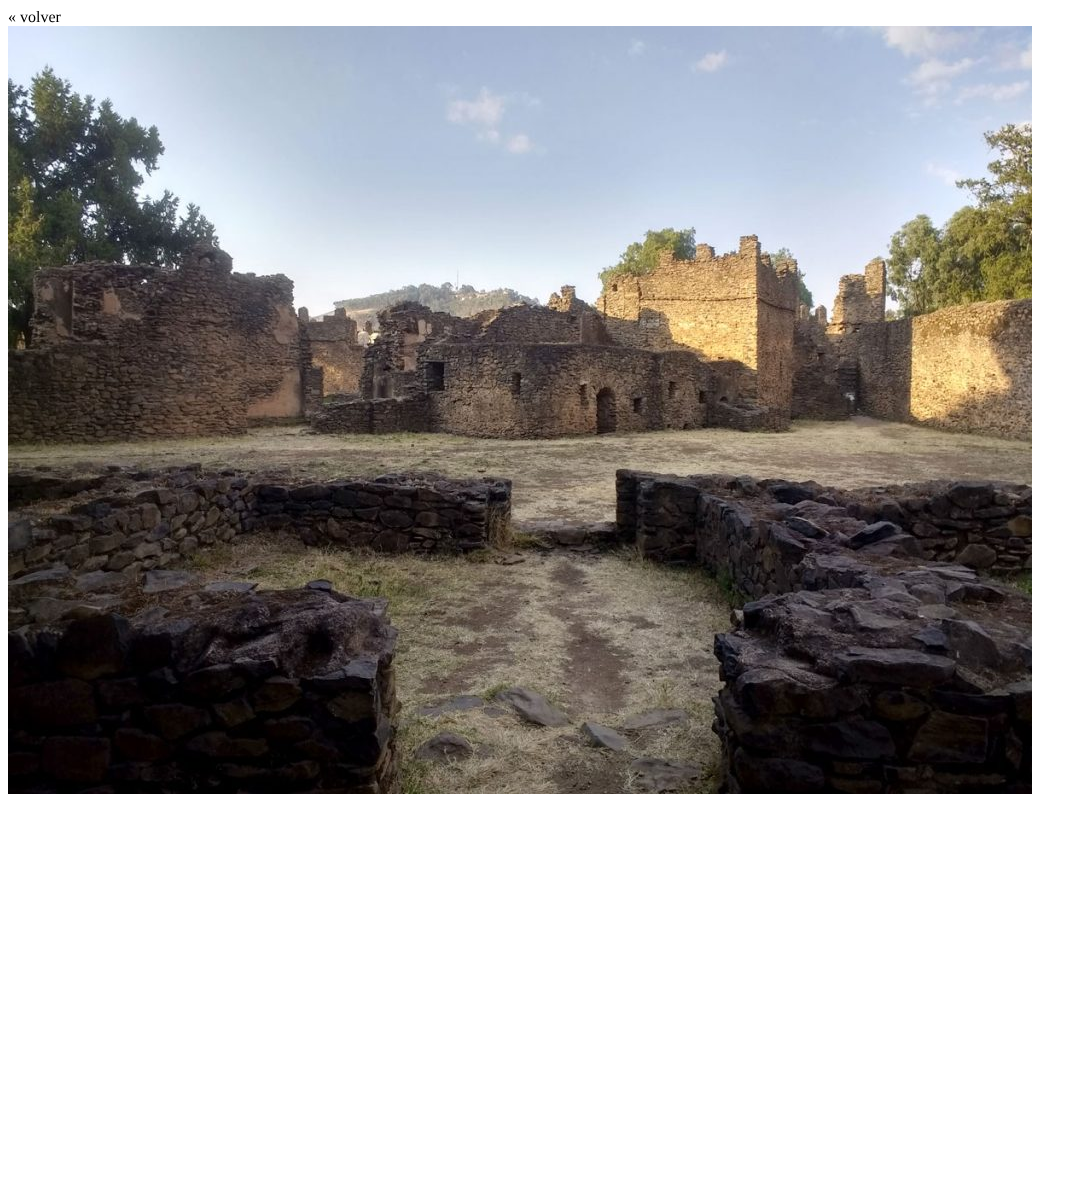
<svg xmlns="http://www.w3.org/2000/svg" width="1074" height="1187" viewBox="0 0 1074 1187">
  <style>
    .t1 { font: 16px Liberation Serif; fill: #000; }
  </style>
  <rect width="100%" height="100%" fill="#fff"/>
  <text x="8" y="22" class="t1">« volver</text>
  <image x="8" y="26" width="1024" height="768" href="images/1.png"/>
</svg>
